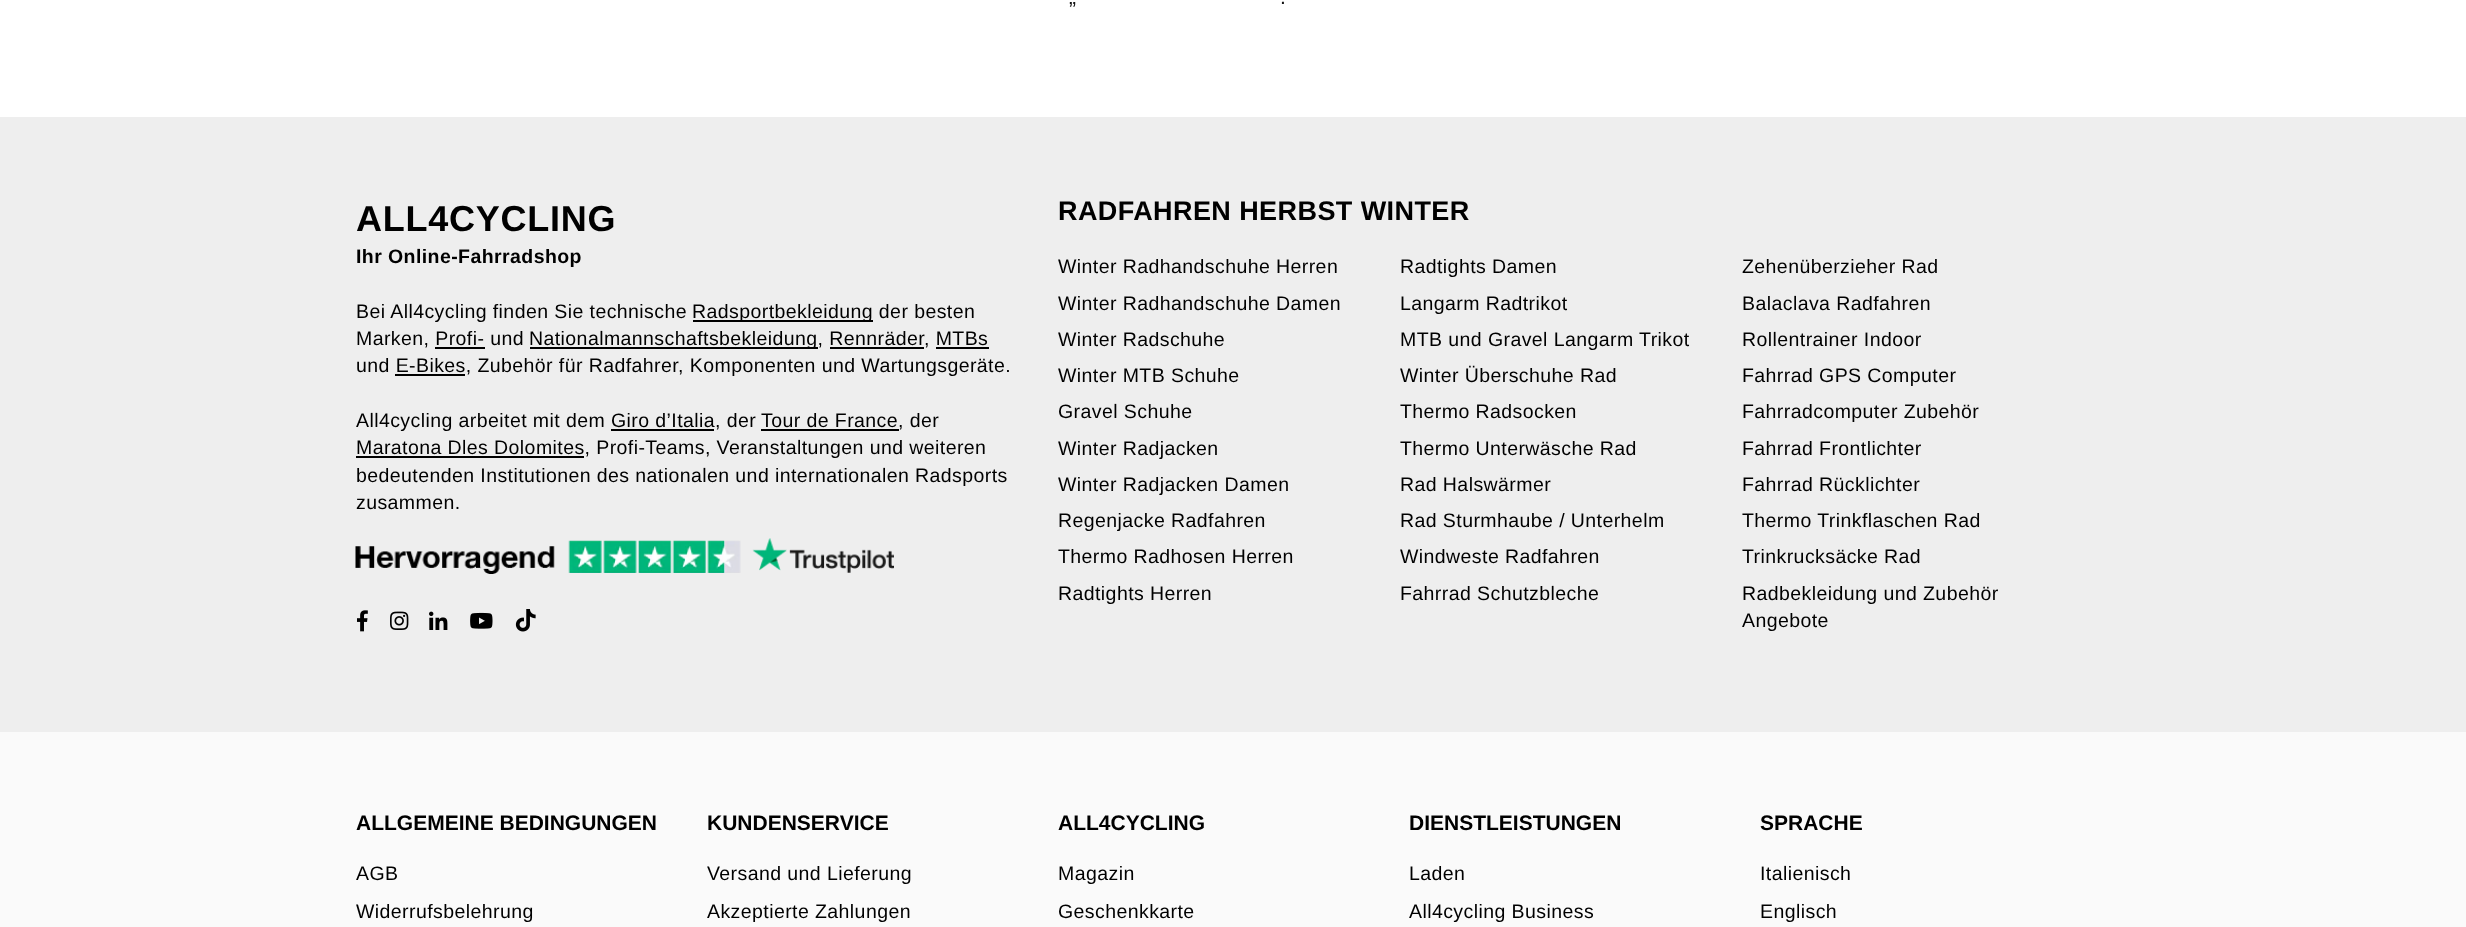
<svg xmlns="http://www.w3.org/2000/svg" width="2466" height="927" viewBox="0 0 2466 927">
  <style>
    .t1 { font: 21px Liberation Sans; letter-spacing: 0.42px; fill: #111; }
    .t2 { font: bold 36px Liberation Sans; letter-spacing: 0.75px; fill: #000; }
    .t3 { font: bold 19.5px Liberation Sans; letter-spacing: 0.42px; fill: #000; }
    .t4 { font: 19.5px Liberation Sans; letter-spacing: 0.42px; fill: #000; }
    .t5 { font: bold 27px Liberation Sans; letter-spacing: 0.42px; fill: #000; }
    .t6 { font: bold 21px Liberation Sans; fill: #000; }
  </style>
  <rect width="100%" height="100%" fill="#fff"/>
  <text x="1069" y="4" class="t1">„</text>
  <text x="1280" y="4" class="t1">.</text>
  <rect x="0" y="117" width="2466" height="615" fill="#eee"/>
  <text x="356" y="231" class="t2">ALL4CYCLING</text>
  <text x="356" y="263" class="t3">Ihr Online-Fahrradshop</text>
  <text x="356" y="318" class="t4">Bei All4cycling finden Sie technische</text>
  <rect x="693" y="320" width="180" height="2" fill="#000"/>
  <text x="692" y="318" class="t4">Radsportbekleidung der besten</text>
  <text x="356" y="345" class="t4">Marken, Profi- und</text>
  <rect x="530" y="347" width="288" height="2" fill="#000"/>
  <text x="529" y="345" class="t4">Nationalmannschaftsbekleidung, Rennräder</text>
  <text x="924" y="345" class="t4">, MTBs</text>
  <rect x="435" y="347" width="50" height="2" fill="#000"/>
  <rect x="830" y="347" width="94" height="2" fill="#000"/>
  <rect x="936" y="347" width="53" height="2" fill="#000"/>
  <text x="356" y="372" class="t4">und E-Bikes, Zubehör für Radfahrer, Komponenten und Wartungsgeräte.</text>
  <rect x="395" y="374" width="70" height="2" fill="#000"/>
  <text x="356" y="427" class="t4">All4cycling arbeitet mit dem Giro d’Italia, der</text>
  <rect x="761" y="429" width="138" height="2" fill="#000"/>
  <text x="761" y="427" class="t4">Tour de France, der</text>
  <rect x="611" y="429" width="103" height="2" fill="#000"/>
  <rect x="356" y="456" width="228" height="2" fill="#000"/>
  <text x="356" y="454" class="t4">Maratona Dles Dolomites, Profi-Teams, Veranstaltungen und weiteren</text>
  <text x="356" y="482" class="t4">bedeutenden Institutionen des nationalen und internationalen Radsports</text>
  <text x="356" y="509" class="t4">zusammen.</text>
  <image x="355" y="538" width="539" height="36" href="images/1.png"/>
  <image x="357" y="610" width="11" height="22" href="images/2.png"/>
  <image x="390" y="611" width="19" height="19" href="images/3.png"/>
  <image x="429" y="611" width="19" height="19" href="images/4.png"/>
  <image x="470" y="612" width="23" height="17" href="images/5.png"/>
  <image x="515" y="609" width="21" height="23" href="images/6.png"/>
  <text x="1058" y="220" class="t5">RADFAHREN HERBST WINTER</text>
  <text x="1058" y="273" class="t4">Winter Radhandschuhe Herren</text>
  <text x="1400" y="273" class="t4">Radtights Damen</text>
  <text x="1742" y="273" class="t4">Zehenüberzieher Rad</text>
  <text x="1058" y="310" class="t4">Winter Radhandschuhe Damen</text>
  <text x="1400" y="310" class="t4">Langarm Radtrikot</text>
  <text x="1742" y="310" class="t4">Balaclava Radfahren</text>
  <text x="1058" y="346" class="t4">Winter Radschuhe</text>
  <text x="1400" y="346" class="t4">MTB und Gravel Langarm Trikot</text>
  <text x="1742" y="346" class="t4">Rollentrainer Indoor</text>
  <text x="1058" y="382" class="t4">Winter MTB Schuhe</text>
  <text x="1400" y="382" class="t4">Winter Überschuhe Rad</text>
  <text x="1742" y="382" class="t4">Fahrrad GPS Computer</text>
  <text x="1058" y="418" class="t4">Gravel Schuhe</text>
  <text x="1400" y="418" class="t4">Thermo Radsocken</text>
  <text x="1742" y="418" class="t4">Fahrradcomputer Zubehör</text>
  <text x="1058" y="455" class="t4">Winter Radjacken</text>
  <text x="1400" y="455" class="t4">Thermo Unterwäsche Rad</text>
  <text x="1742" y="455" class="t4">Fahrrad Frontlichter</text>
  <text x="1058" y="491" class="t4">Winter Radjacken Damen</text>
  <text x="1400" y="491" class="t4">Rad Halswärmer</text>
  <text x="1742" y="491" class="t4">Fahrrad Rücklichter</text>
  <text x="1058" y="527" class="t4">Regenjacke Radfahren</text>
  <text x="1400" y="527" class="t4">Rad Sturmhaube / Unterhelm</text>
  <text x="1742" y="527" class="t4">Thermo Trinkflaschen Rad</text>
  <text x="1058" y="563" class="t4">Thermo Radhosen Herren</text>
  <text x="1400" y="563" class="t4">Windweste Radfahren</text>
  <text x="1742" y="563" class="t4">Trinkrucksäcke Rad</text>
  <text x="1058" y="600" class="t4">Radtights Herren</text>
  <text x="1400" y="600" class="t4">Fahrrad Schutzbleche</text>
  <text x="1742" y="600" class="t4">Radbekleidung und Zubehör</text>
  <text x="1742" y="627" class="t4">Angebote</text>
  <rect x="0" y="732" width="2466" height="195" fill="#fafafa"/>
  <text x="356" y="830" class="t6">ALLGEMEINE BEDINGUNGEN</text>
  <text x="356" y="880" class="t4">AGB</text>
  <text x="356" y="918" class="t4">Widerrufsbelehrung</text>
  <text x="707" y="830" class="t6">KUNDENSERVICE</text>
  <text x="707" y="880" class="t4">Versand und Lieferung</text>
  <text x="707" y="918" class="t4">Akzeptierte Zahlungen</text>
  <text x="1058" y="830" class="t6">ALL4CYCLING</text>
  <text x="1058" y="880" class="t4">Magazin</text>
  <text x="1058" y="918" class="t4">Geschenkkarte</text>
  <text x="1409" y="830" class="t6">DIENSTLEISTUNGEN</text>
  <text x="1409" y="880" class="t4">Laden</text>
  <text x="1409" y="918" class="t4">All4cycling Business</text>
  <text x="1760" y="830" class="t6">SPRACHE</text>
  <text x="1760" y="880" class="t4">Italienisch</text>
  <text x="1760" y="918" class="t4">Englisch</text>
</svg>
